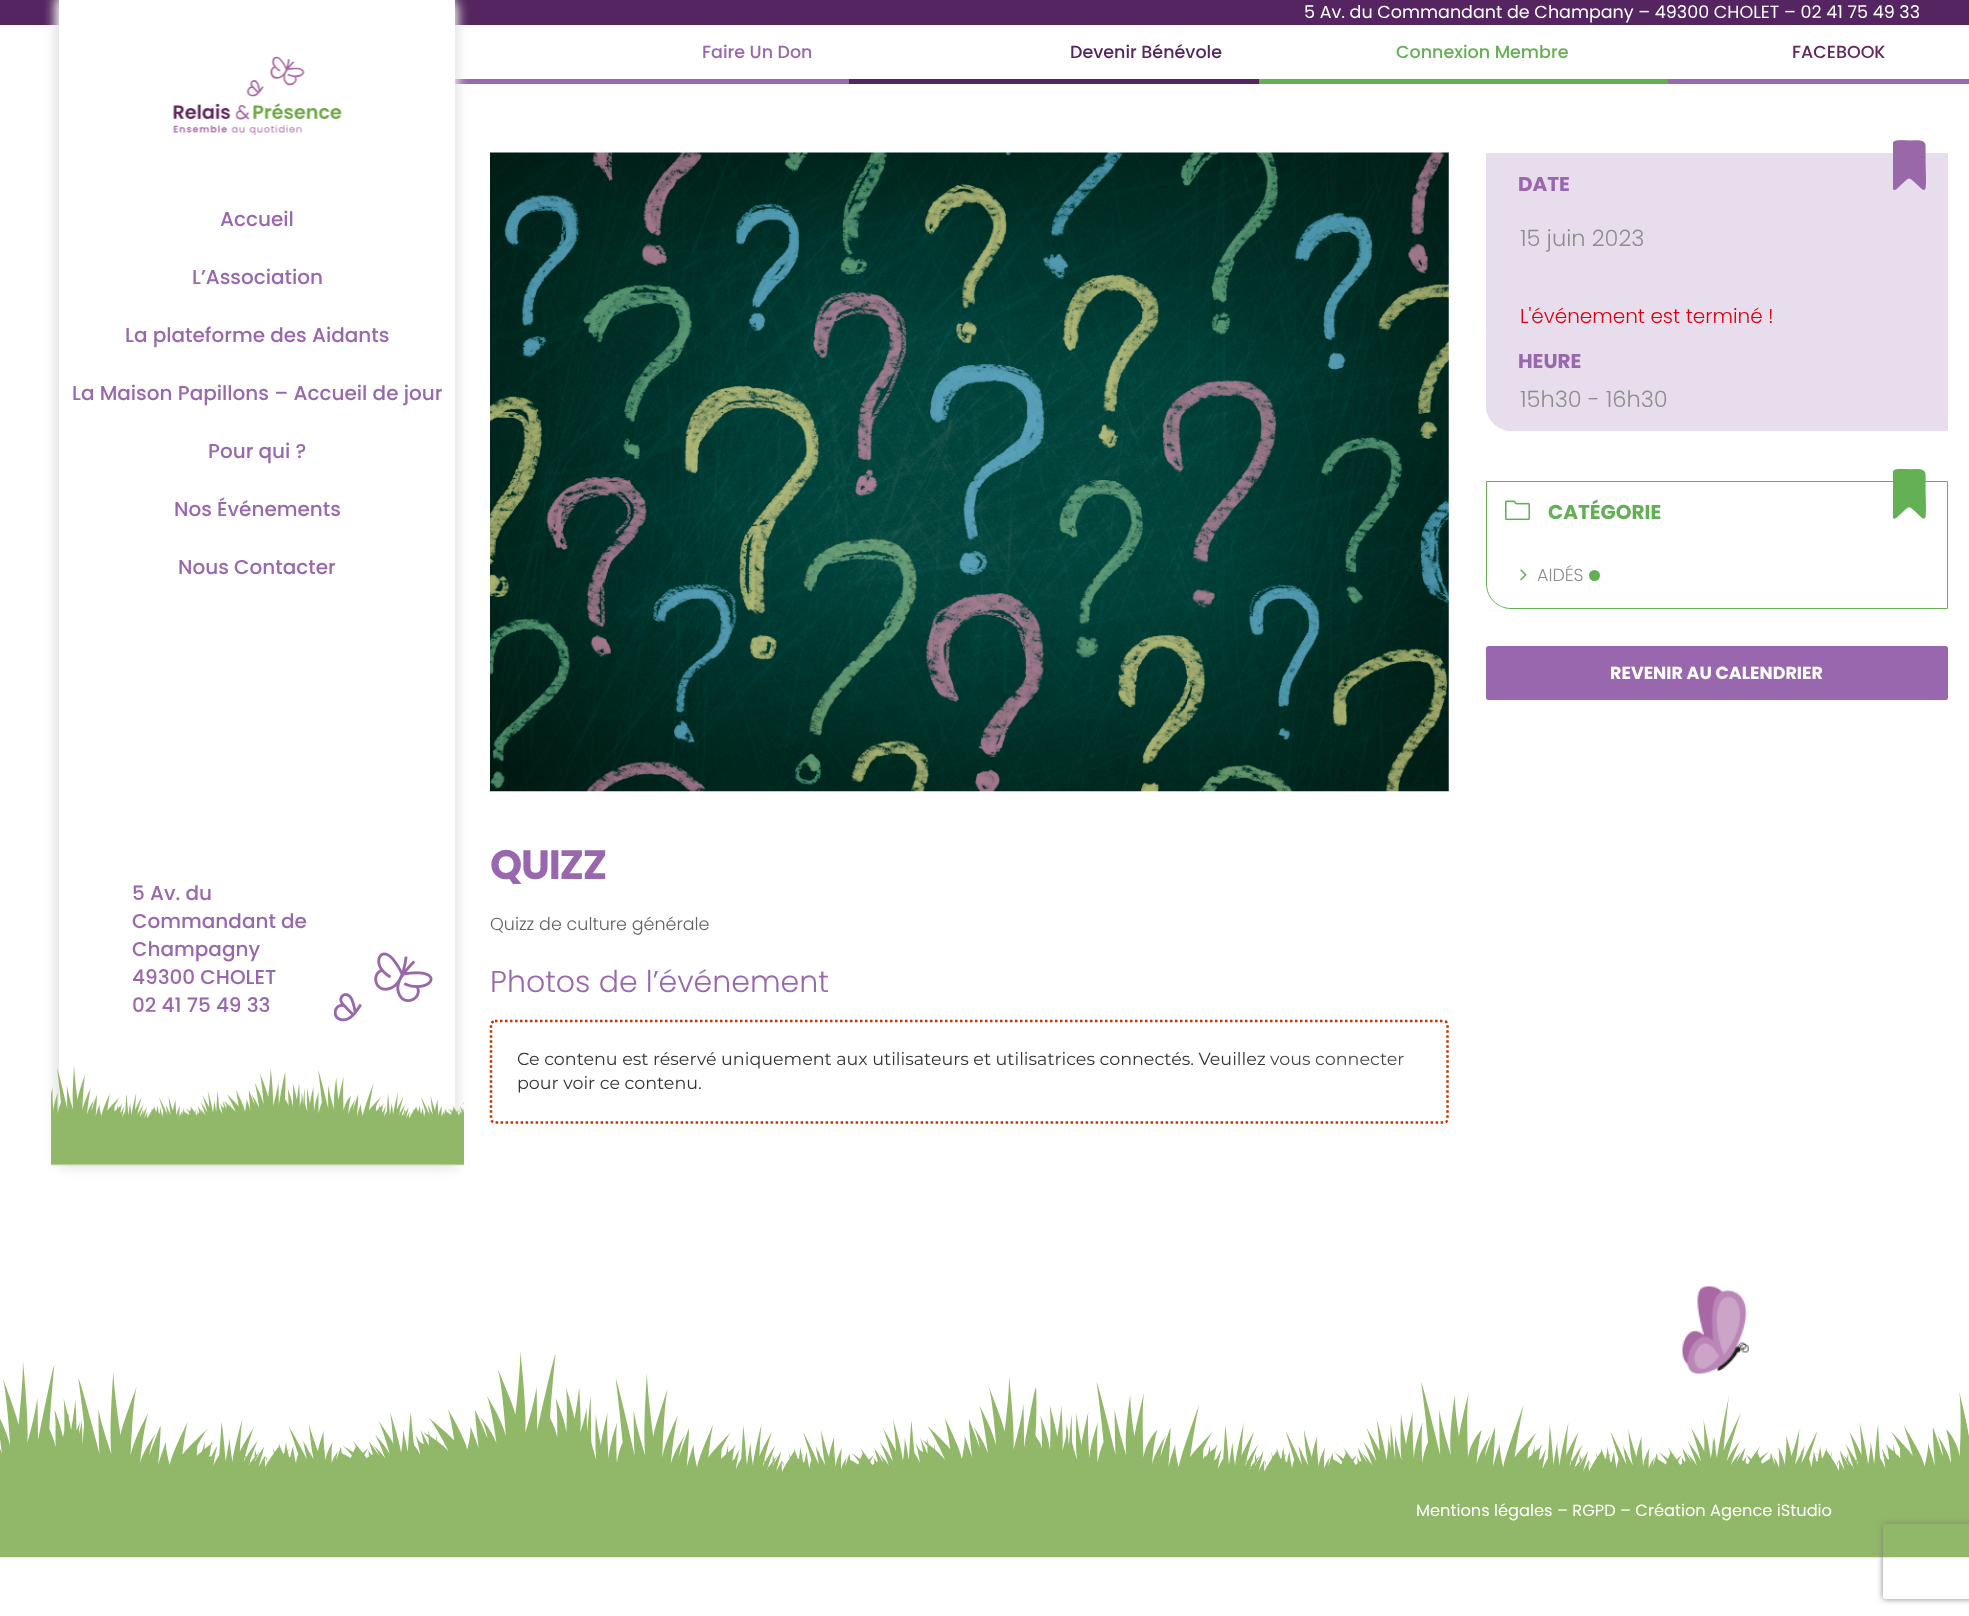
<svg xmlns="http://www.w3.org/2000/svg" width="1969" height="1616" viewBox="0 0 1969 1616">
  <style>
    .t1 { font: 17.5px Poppins; fill: #fff; }
    .t2 { font: 500 17.5px Poppins; fill: #9967ad; }
    .t3 { font: 500 17.5px Poppins; fill: #542560; }
    .t4 { font: 500 17.5px Poppins; fill: #64af55; }
    .t5 { font: 500 17.5px Poppins; fill: #63275b; }
    .t6 { font: 500 20px Poppins; fill: #9967ad; }
    .t7 { font: bold 20px Poppins; fill: #9967ad; }
    .t8 { font: 300 22.5px Poppins; fill: #8d8d8d; }
    .t9 { font: 300 20px Poppins; fill: #d8000c; }
    .t10 { font: bold 20px Poppins; fill: #64af55; }
    .t11 { font: 300 17.5px Poppins; fill: #8d8d8d; }
    .t12 { font: bold 17.5px Poppins; fill: #fff; }
    .t13 { font: bold 41px Poppins; letter-spacing: -1.25px; fill: #9967ad; }
    .t14 { font: 300 17.5px Poppins; fill: #616161; }
    .t15 { font: 300 30px Poppins; fill: #9967ad; }
    .t16 { font: 17.5px Montserrat; fill: #333; }
    .t17 { font: 17.5px Montserrat; fill: #484848; }
    .t18 { font: 16.25px Poppins; fill: #fff; }
  </style>
  <defs>
    <clipPath id="clip1"><path d="M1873 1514H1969V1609H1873ZM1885.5 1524H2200.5C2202 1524 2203 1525 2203 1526.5V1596.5C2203 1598 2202 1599 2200.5 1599H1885.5C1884 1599 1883 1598 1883 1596.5V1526.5C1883 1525 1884 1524 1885.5 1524Z" clip-rule="evenodd"/></clipPath>
  </defs>
  <rect width="100%" height="100%" fill="#fff"/>
  <rect x="0" y="0" width="1969" height="25" fill="#542560"/>
  <text x="1304" y="18" class="t1">5 Av. du Commandant de Champany – 49300 CHOLET – 02 41 75 49 33</text>
  <rect x="455" y="79" width="394" height="5" fill="#9967ad"/>
  <text x="702" y="58" class="t2">Faire Un Don</text>
  <rect x="849" y="79" width="410" height="5" fill="#542560"/>
  <text x="1070" y="58" class="t3">Devenir Bénévole</text>
  <rect x="1259" y="79" width="409" height="5" fill="#64af55"/>
  <text x="1396" y="58" class="t4">Connexion Membre</text>
  <rect x="1668" y="79" width="301" height="5" fill="#9967ad"/>
  <text x="1792" y="58" class="t5">FACEBOOK</text>
  <rect x="55" y="-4" width="396" height="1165" fill="#e5e5e5" filter="blur(6px)"/>
  <rect x="61" y="3" width="397" height="1165" fill="#e5e5e5" filter="blur(6px)"/>
  <rect x="59" y="0" width="396" height="1165" fill="#fff"/>
  <image x="173" y="56" width="169" height="79" href="images/1.png"/>
  <text x="220" y="226" class="t6">Accueil</text>
  <text x="192" y="284" class="t6">L’Association</text>
  <text x="125" y="342" class="t6">La plateforme des Aidants</text>
  <text x="72" y="400" class="t6">La Maison Papillons – Accueil de jour</text>
  <text x="208" y="458" class="t6">Pour qui ?</text>
  <text x="174" y="516" class="t6">Nos Événements</text>
  <text x="178" y="574" class="t6">Nous Contacter</text>
  <text x="132" y="900" class="t6">5 Av. du</text>
  <text x="132" y="928" class="t6">Commandant de</text>
  <text x="132" y="956" class="t6">Champagny</text>
  <text x="132" y="984" class="t6">49300 CHOLET</text>
  <text x="132" y="1012" class="t6">02 41 75 49 33</text>
  <image x="334" y="952" width="99" height="70" href="images/2.png"/>
  <image x="51" y="1065" width="413" height="101" href="images/3.png"/>
  <path d="M1486 155V611H1948V155V609H1486Z" fill="#fbfbfb"/>
  <rect x="1486" y="153" width="462" height="181" fill="#e7ddec"/>
  <text x="1518" y="191" class="t7">DATE</text>
  <image x="1893" y="140" width="33" height="50" href="images/4.png"/>
  <text x="1520" y="246" class="t8">15 juin 2023</text>
  <text x="1520" y="323" class="t9">L'événement est terminé !</text>
  <path d="M1486.5 334.5H1947.5V430.5H1511C1497.5 430.5 1486.5 419.5 1486.5 406Z" fill="#e7ddec" stroke="#e7ddec"/>
  <text x="1518" y="368" class="t7">HEURE</text>
  <text x="1520" y="407" class="t8">15h30 - 16h30</text>
  <path d="M1486.5 481.5H1947.5V608.5H1511C1497.5 608.5 1486.5 597.5 1486.5 584Z" fill="none" stroke="#64af55"/>
  <image x="1505" y="500" width="25" height="21" href="images/5.png"/>
  <text x="1548" y="519" class="t10">CATÉGORIE</text>
  <image x="1893" y="469" width="33" height="50" href="images/6.png"/>
  <image x="1520" y="569" width="7" height="12" href="images/7.png"/>
  <text x="1537" y="581" class="t11">AIDÉS</text>
  <circle cx="1594.5" cy="575.5" r="5.5" fill="#64af55"/>
  <rect x="1486" y="646" width="462" height="54" rx="2.5" fill="#9967ad"/>
  <text x="1610" y="679" class="t12">REVENIR AU CALENDRIER</text>
  <image x="490" y="152" width="959" height="640" href="images/8.png"/>
  <text x="490" y="879" class="t13">QUIZZ</text>
  <text x="490" y="930" class="t14">Quizz de culture générale</text>
  <text x="490" y="992" class="t15">Photos de l’événement</text>
  <path d="M495 1021H1444C1446 1021 1447.5 1023 1447.5 1025V1119C1447.5 1121 1446 1122.5 1444 1122.5H495C493 1122.5 491 1121 491 1119V1025C491 1023 493 1021 495 1021Z" fill="none" stroke="#cc3000" stroke-width="2.5" stroke-dasharray="2.5 2.5"/>
  <text x="517" y="1065" class="t16">Ce contenu est réservé uniquement aux utilisateurs et utilisatrices connectés. Veuillez</text>
  <text x="1270" y="1065" class="t17">vous connecter</text>
  <text x="517" y="1089" class="t16">pour voir ce contenu.</text>
  <image x="0" y="1351" width="1969" height="207" href="images/10.png"/>
  <image x="1682" y="1286" width="67" height="88" href="images/9.png"/>
  <text x="1416" y="1516" class="t18">Mentions légales – RGPD – Création Agence iStudio</text>
  <g clip-path="url(#clip1)">
    <rect x="1883" y="1524" width="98" height="75" rx="2.5" fill="#808080" filter="blur(3px)"/>
  </g>
</svg>
